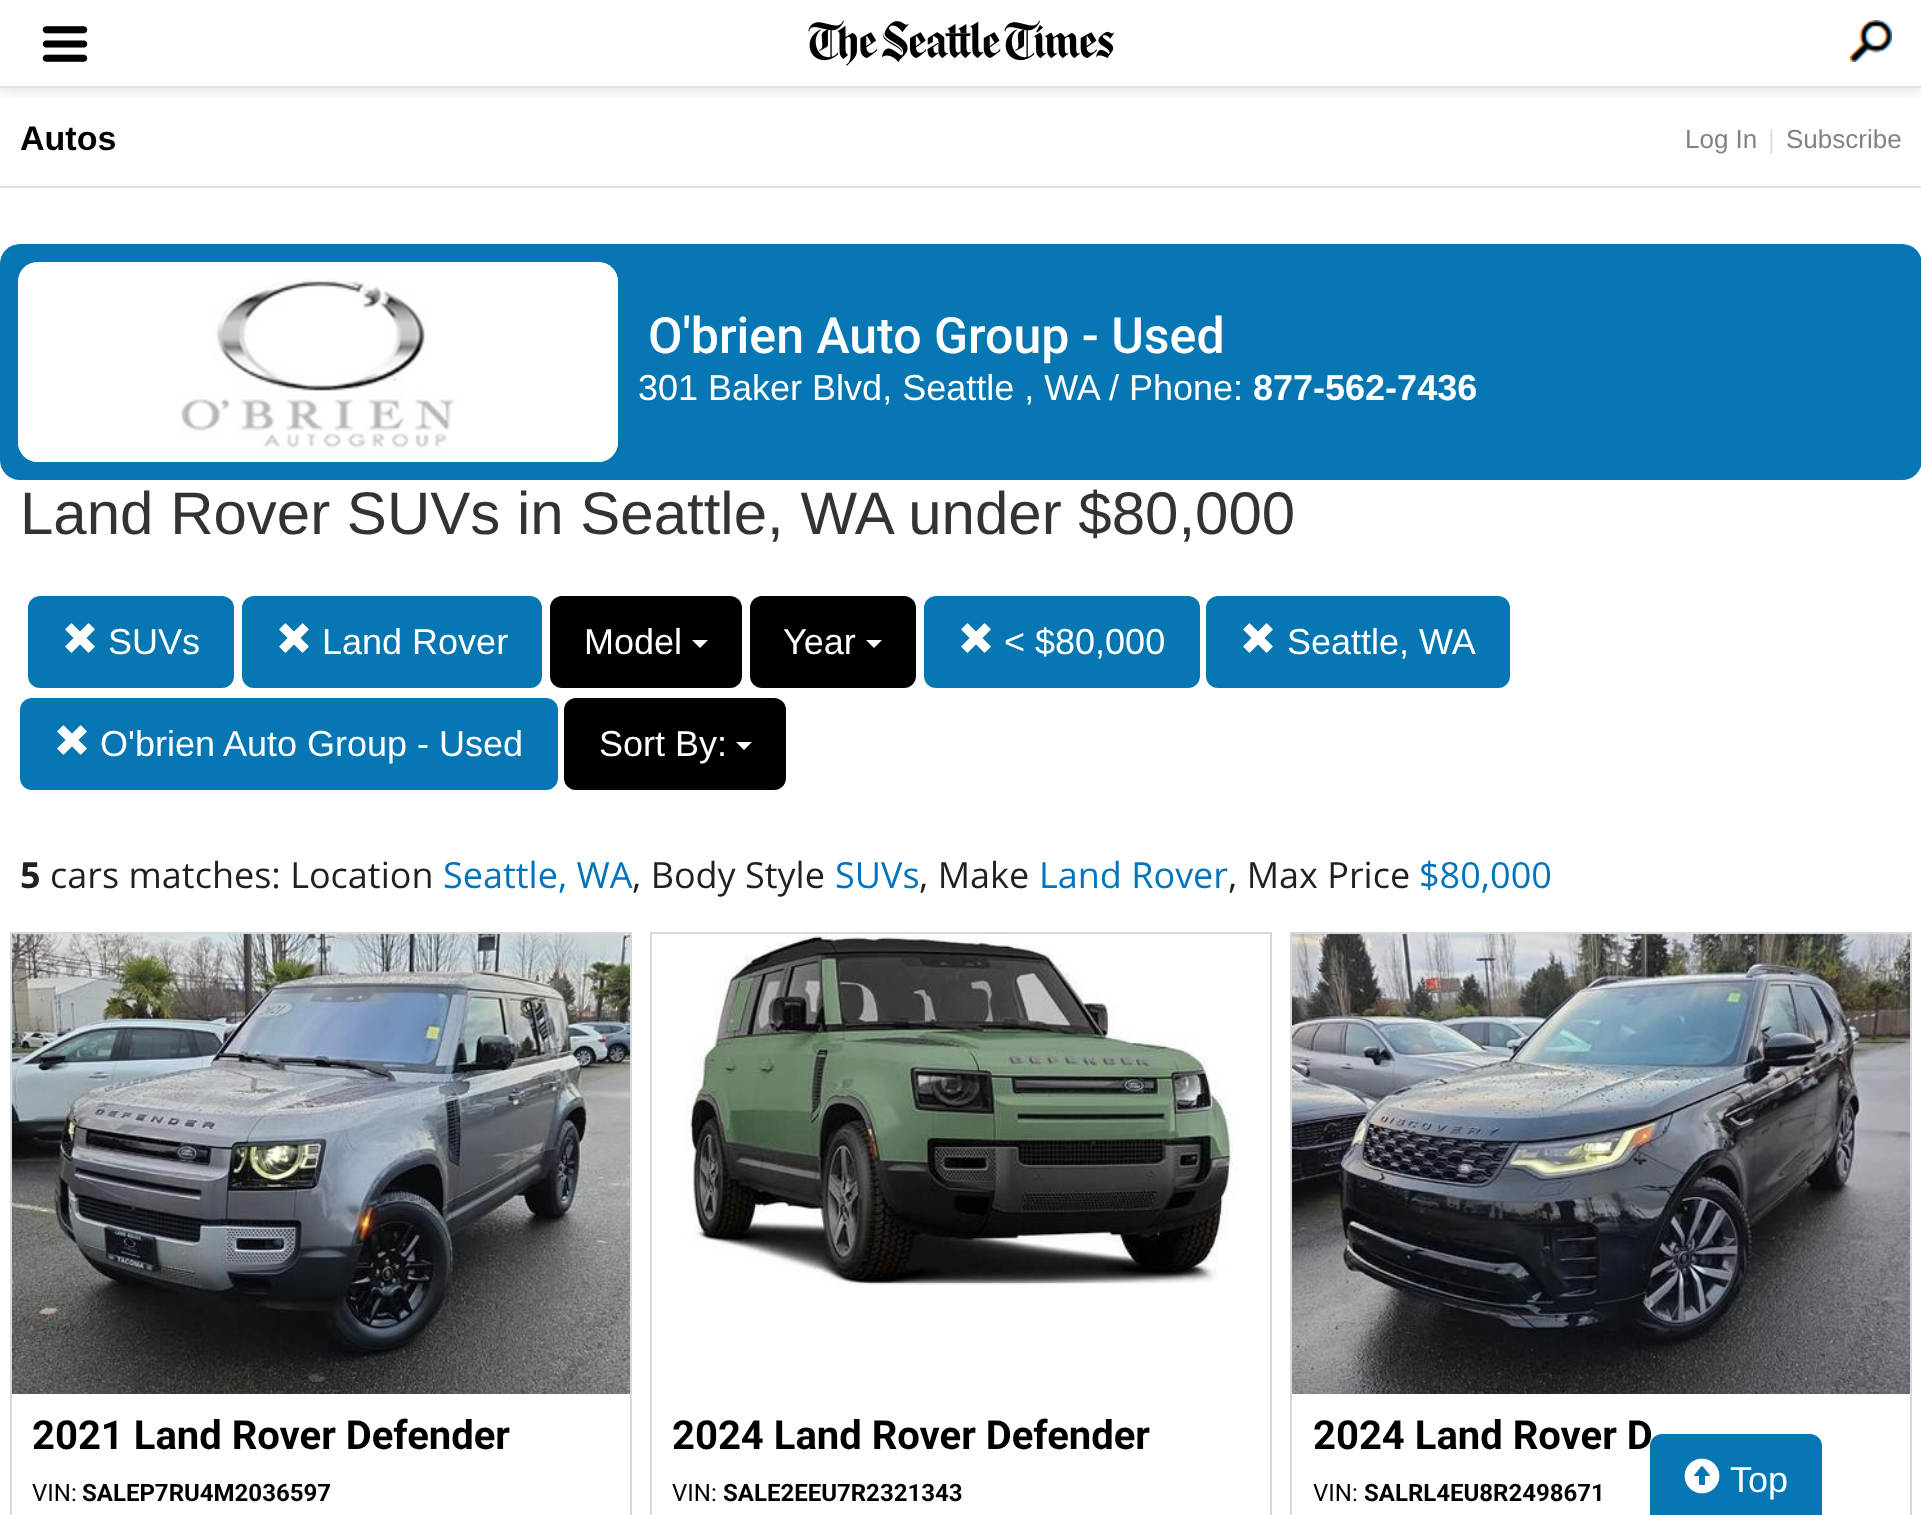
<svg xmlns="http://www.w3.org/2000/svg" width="1921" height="1515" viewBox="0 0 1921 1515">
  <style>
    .t1 { font: bold 34px Liberation Sans; fill: #000; }
    .t2 { font: 26px Liberation Sans; fill: #7e838b; }
    .t3 { font: 26px Liberation Sans; fill: #e0e0e0; }
    .t4 { font: 500 50px Roboto; fill: #fff; }
    .t5 { font: 36px Liberation Sans; fill: #fff; }
    .t6 { font: bold 36px Liberation Sans; fill: #fff; }
    .t7 { font: 60px Liberation Sans; fill: #333; }
    .t8 { font: bold 36px Open Sans; fill: #231f20; }
    .t9 { font: 36px Open Sans; fill: #231f20; }
    .t10 { font: 36px Open Sans; fill: #0073bd; }
    .t11 { font: bold 40px Roboto; fill: #000; }
    .t12 { font: 24px Roboto; fill: #000; }
    .t13 { font: bold 24px Roboto; fill: #000; }
  </style>
  <defs>
    <clipPath id="clip1"><rect x="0" y="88" width="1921" height="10"/></clipPath>
  </defs>
  <rect width="100%" height="100%" fill="#fff"/>
  <g clip-path="url(#clip1)">
    <rect x="0" y="4" width="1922" height="88" fill="#0000001a" filter="blur(7px)"/>
  </g>
  <rect x="0" y="86" width="1921" height="2" fill="#e0e0e0"/>
  <image x="42" y="26" width="46" height="36" href="images/1.png"/>
  <image x="808" y="20" width="306" height="46" href="images/2.png"/>
  <image x="1850" y="20" width="42" height="42" href="images/3.png"/>
  <rect x="0" y="186" width="1921" height="2" fill="#e0e0e0"/>
  <text x="20" y="150" class="t1">Autos</text>
  <text x="1685" y="148" class="t2">Log In</text>
  <text x="1768" y="148" class="t3">|</text>
  <text x="1786" y="148" class="t2">Subscribe</text>
  <rect x="0" y="244" width="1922" height="236" rx="20" fill="#0777b3"/>
  <rect x="18" y="262" width="600" height="200" rx="20" fill="#fff"/>
  <image x="18" y="262" width="600" height="200" href="images/4.png"/>
  <text x="648" y="353" class="t4">O'brien Auto Group - Used</text>
  <text x="638" y="400" class="t5">301 Baker Blvd, Seattle , WA / Phone:</text>
  <text x="1253" y="400" class="t6">877-562-7436</text>
  <text x="20" y="534" class="t7">Land Rover SUVs in Seattle, WA under $80,000</text>
  <rect x="28" y="596" width="206" height="92" rx="12" fill="#0777b3"/>
  <image x="65" y="623" width="30" height="30" href="images/5.png"/>
  <text x="108" y="654" class="t5">SUVs</text>
  <rect x="242" y="596" width="300" height="92" rx="12" fill="#0777b3"/>
  <image x="279" y="623" width="30" height="30" href="images/5.png"/>
  <text x="322" y="654" class="t5">Land Rover</text>
  <rect x="550" y="596" width="192" height="92" rx="12" fill="#000"/>
  <text x="584" y="654" class="t5">Model</text>
  <path d="M692 640H708L700 648Z" fill="#fff"/>
  <rect x="750" y="596" width="166" height="92" rx="12" fill="#000"/>
  <text x="783" y="654" class="t5">Year</text>
  <path d="M866 640H882L874 648Z" fill="#fff"/>
  <rect x="924" y="596" width="276" height="92" rx="12" fill="#0777b3"/>
  <image x="961" y="623" width="30" height="30" href="images/5.png"/>
  <text x="1004" y="654" class="t5">&lt; $80,000</text>
  <rect x="1206" y="596" width="304" height="92" rx="12" fill="#0777b3"/>
  <image x="1243" y="623" width="30" height="30" href="images/5.png"/>
  <text x="1287" y="654" class="t5">Seattle, WA</text>
  <rect x="20" y="698" width="538" height="92" rx="12" fill="#0777b3"/>
  <image x="57" y="725" width="30" height="30" href="images/5.png"/>
  <text x="100" y="756" class="t5">O'brien Auto Group - Used</text>
  <rect x="564" y="698" width="222" height="92" rx="12" fill="#000"/>
  <text x="599" y="756" class="t5">Sort By:</text>
  <path d="M736 742H752L744 750Z" fill="#fff"/>
  <text x="20" y="888" class="t8">5</text>
  <text x="50" y="888" class="t9">cars matches: Location</text>
  <text x="443" y="888" class="t10">Seattle, WA</text>
  <text x="632" y="888" class="t9">, Body Style</text>
  <text x="835" y="888" class="t10">SUVs</text>
  <text x="919" y="888" class="t9">, Make</text>
  <text x="1039" y="888" class="t10">Land Rover</text>
  <text x="1228" y="888" class="t9">, Max Price</text>
  <text x="1419" y="888" class="t10">$80,000</text>
  <rect x="11" y="933" width="620" height="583" fill="none" stroke="#d4d8d9" stroke-width="2"/>
  <image x="12" y="934" width="618" height="460" href="images/6.png"/>
  <text x="32" y="1449" class="t11">2021 Land Rover Defender</text>
  <text x="32" y="1501" class="t12">VIN:</text>
  <text x="82" y="1501" class="t13">SALEP7RU4M2036597</text>
  <rect x="651" y="933" width="620" height="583" fill="none" stroke="#d4d8d9" stroke-width="2"/>
  <image x="685" y="934" width="554" height="351" href="images/7.png"/>
  <text x="672" y="1449" class="t11">2024 Land Rover Defender</text>
  <text x="672" y="1501" class="t12">VIN:</text>
  <text x="723" y="1501" class="t13">SALE2EEU7R2321343</text>
  <rect x="1291" y="933" width="620" height="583" fill="none" stroke="#d4d8d9" stroke-width="2"/>
  <image x="1292" y="934" width="618" height="460" href="images/8.png"/>
  <text x="1313" y="1449" class="t11">2024 Land Rover D</text>
  <text x="1313" y="1501" class="t12">VIN:</text>
  <text x="1364" y="1501" class="t13">SALRL4EU8R2498671</text>
  <rect x="1651" y="1435" width="170" height="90" rx="11" fill="#0777b3" stroke="#0777b3" stroke-width="2"/>
  <image x="1684" y="1458" width="36" height="36" href="images/9.png"/>
  <text x="1730" y="1492" class="t5">Top</text>
</svg>
